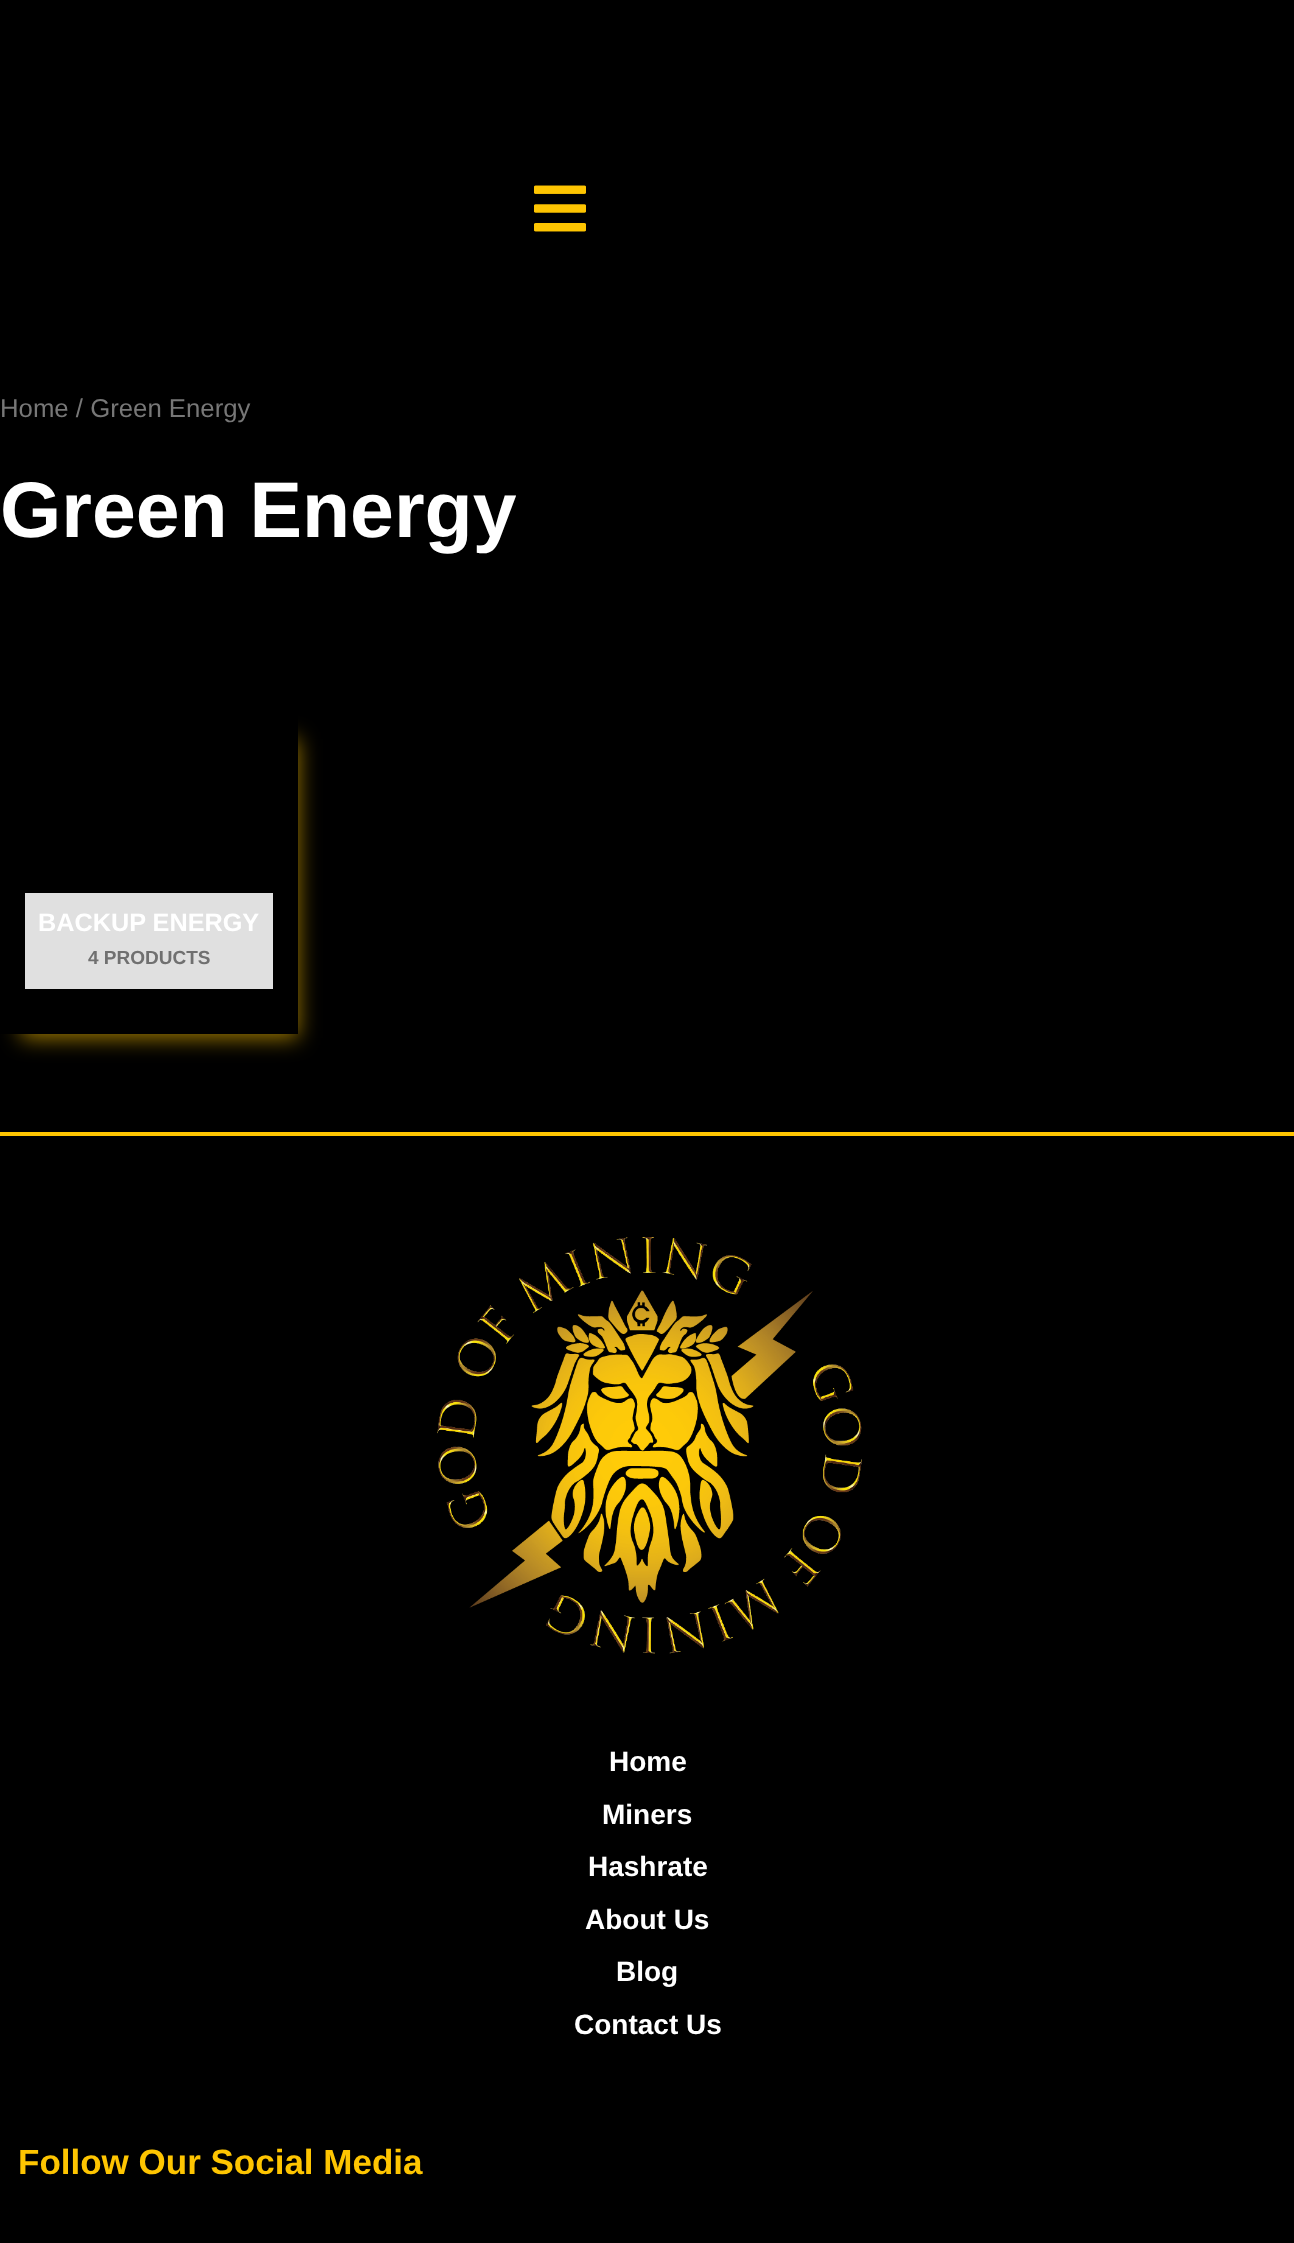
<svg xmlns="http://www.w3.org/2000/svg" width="1294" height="2243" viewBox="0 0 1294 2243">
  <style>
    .t1 { font: 25.75px Liberation Sans; fill: #777; }
    .t2 { font: bold 78.75px Liberation Sans; fill: #fff; }
    .t3 { font: bold 25.25px Liberation Sans; fill: #fff; }
    .t4 { font: bold 19px Liberation Sans; fill: #707070; }
    .t5 { font: bold 28px Liberation Sans; fill: #fff; }
    .t6 { font: bold 35px Liberation Sans; fill: #fec501; }
  </style>
  <defs>
    <clipPath id="clip1"><path d="M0 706H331V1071H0ZM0 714H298V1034H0Z" clip-rule="evenodd"/></clipPath>
  </defs>
  <rect width="100%" height="100%" fill="#000"/>
  <image x="534" y="185" width="52" height="47" href="images/1.png"/>
  <text x="0" y="417" class="t1">Home / Green Energy</text>
  <text x="0" y="537" class="t2">Green Energy</text>
  <g clip-path="url(#clip1)">
    <rect x="21" y="739" width="277" height="299" fill="#ffc3009e" filter="blur(10.5px)"/>
  </g>
  <rect x="25" y="893" width="248" height="96" fill="#e0e0e0"/>
  <text x="38" y="931" class="t3">BACKUP ENERGY</text>
  <text x="88" y="964" class="t4">4 PRODUCTS</text>
  <rect x="0" y="1132" width="1294" height="4" fill="#fec501"/>
  <image x="437" y="1237" width="425" height="417" href="images/2.png"/>
  <text x="609" y="1771" class="t5">Home</text>
  <text x="602" y="1824" class="t5">Miners</text>
  <text x="588" y="1876" class="t5">Hashrate</text>
  <text x="585" y="1929" class="t5">About Us</text>
  <text x="616" y="1981" class="t5">Blog</text>
  <text x="574" y="2034" class="t5">Contact Us</text>
  <text x="18" y="2174" class="t6">Follow Our Social Media</text>
</svg>
